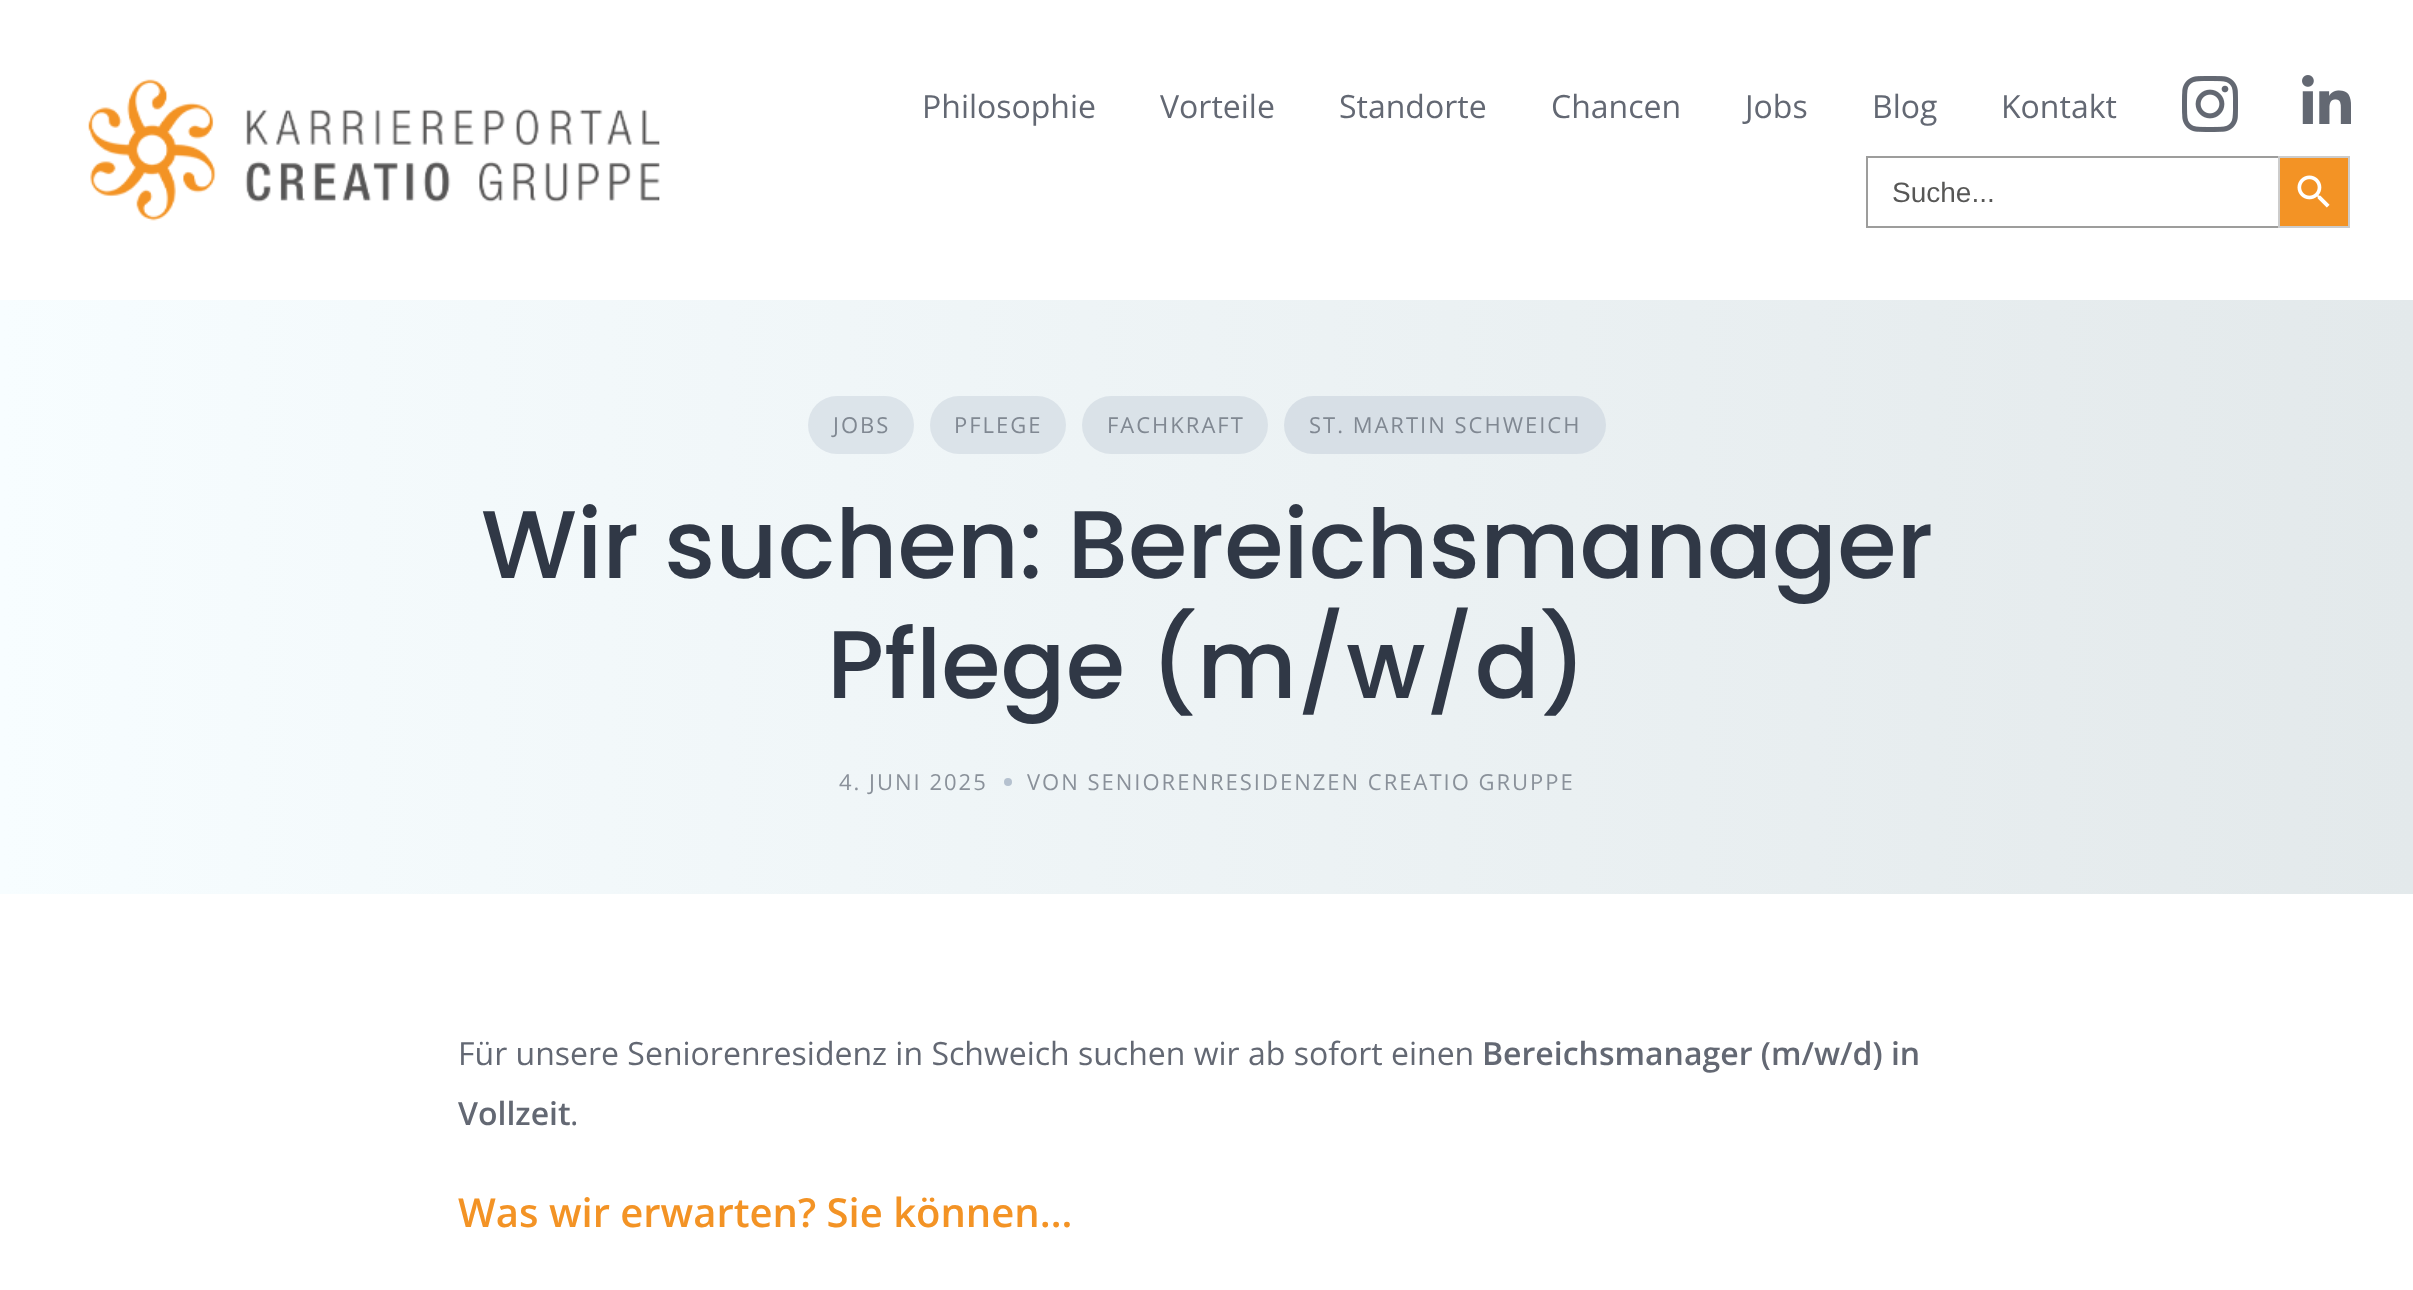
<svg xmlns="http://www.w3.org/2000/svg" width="2413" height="1290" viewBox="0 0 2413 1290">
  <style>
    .t1 { font: 32px Open Sans; fill: #636873; }
    .t2 { font: 28px Liberation Sans; fill: #575756; }
    .t3 { font: 22px Open Sans; letter-spacing: 2px; fill: #808892; }
    .t4 { font: 500 96px Poppins; fill: #303846; }
    .t5 { font: 22px Open Sans; letter-spacing: 2px; fill: #8a919a; }
    .t6 { font: 600 32px Open Sans; fill: #636873; }
    .t7 { font: 600 40px Open Sans; fill: #f39325; }
  </style>
  <defs>
    <linearGradient id="g1" gradientUnits="userSpaceOnUse" x1="0" y1="597" x2="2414" y2="597"><stop offset="0" stop-color="#f7fdff"/><stop offset="1" stop-color="#e3e9eb"/></linearGradient>
  </defs>
  <rect width="100%" height="100%" fill="#fff"/>
  <image x="88" y="79" width="572" height="142" href="images/1.png"/>
  <text x="922" y="118" class="t1">Philosophie</text>
  <text x="1160" y="118" class="t1">Vorteile</text>
  <text x="1339" y="118" class="t1">Standorte</text>
  <text x="1551" y="118" class="t1">Chancen</text>
  <text x="1745" y="118" class="t1">Jobs</text>
  <text x="1872" y="118" class="t1">Blog</text>
  <text x="2001" y="118" class="t1">Kontakt</text>
  <image x="2182" y="76" width="56" height="56" href="images/2.png"/>
  <image x="2302" y="75" width="49" height="49" href="images/3.png"/>
  <rect x="1866" y="156" width="412" height="2" fill="#9d9d9c"/>
  <rect x="1866" y="226" width="412" height="2" fill="#9d9d9c"/>
  <rect x="1866" y="156" width="2" height="72" fill="#9d9d9c"/>
  <text x="1892" y="202" class="t2">Suche...</text>
  <rect x="2279" y="157" width="70" height="70" fill="#f39325" stroke="#ccc" stroke-width="2"/>
  <image x="2297" y="175" width="33" height="33" href="images/4.png"/>
  <rect x="0" y="300" width="2413" height="594" fill="url(#g1)"/>
  <rect x="808" y="396" width="106" height="58" rx="29" fill="#dce4ea"/>
  <text x="833" y="433" class="t3">JOBS</text>
  <rect x="930" y="396" width="136" height="58" rx="29" fill="#dbe3e9"/>
  <text x="954" y="433" class="t3">PFLEGE</text>
  <rect x="1082" y="396" width="186" height="58" rx="29" fill="#dae2e8"/>
  <text x="1107" y="433" class="t3">FACHKRAFT</text>
  <rect x="1284" y="396" width="322" height="58" rx="29" fill="#d7dfe6"/>
  <text x="1309" y="433" class="t3">ST. MARTIN SCHWEICH</text>
  <text x="481" y="578" class="t4">Wir suchen: Bereichsmanager</text>
  <text x="827" y="698" class="t4">Pflege (m/w/d)</text>
  <text x="839" y="790" class="t5">4. JUNI 2025</text>
  <circle cx="1008" cy="782" r="4" fill="#b5c1cf"/>
  <text x="1027" y="790" class="t5">VON SENIORENRESIDENZEN CREATIO GRUPPE</text>
  <text x="458" y="1065" class="t1">Für unsere Seniorenresidenz in Schweich suchen wir ab sofort einen</text>
  <text x="1482" y="1065" class="t6">Bereichsmanager (m/w/d) in</text>
  <text x="458" y="1125" class="t6">Vollzeit</text>
  <text x="570" y="1125" class="t1">.</text>
  <text x="458" y="1227" class="t7">Was wir erwarten? Sie können…</text>
</svg>
